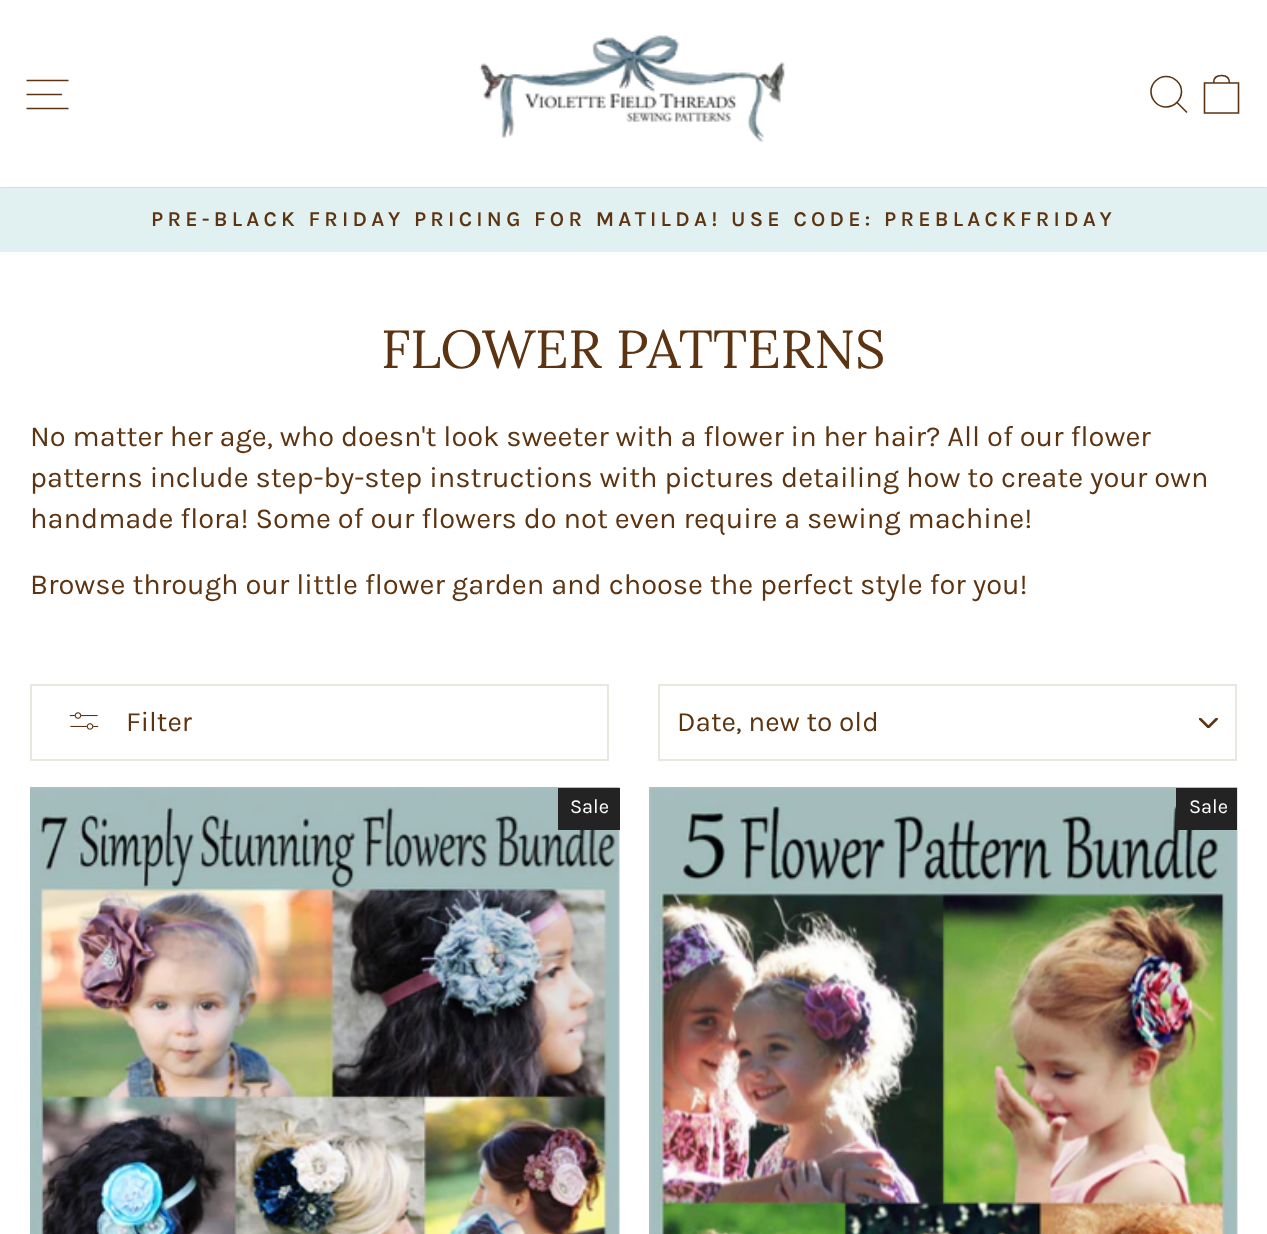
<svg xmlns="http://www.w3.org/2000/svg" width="1267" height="1234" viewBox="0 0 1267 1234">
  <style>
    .t1 { font: 600 21.25px Karla; letter-spacing: 4.25px; fill: #5d3411; }
    .t2 { font: 53.5px Lora; fill: #5d3411; }
    .t3 { font: 29px Karla; fill: #5d3411; }
    .t4 { font: 28px Karla; fill: #5d3411; }
    .t5 { font: 20px Karla; fill: #fff; }
  </style>
  <defs>
    <clipPath id="clip1"><rect x="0" y="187" width="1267" height="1"/></clipPath>
  </defs>
  <rect width="100%" height="100%" fill="#fff"/>
  <rect x="0" y="187" width="1267" height="65" fill="#e1f0f0"/>
  <g clip-path="url(#clip1)">
    <rect x="0" y="0" width="1267" height="187" fill="#00000033" filter="blur(1px)"/>
  </g>
  <path d="M26.5 80.5H68.5M26.5 94.5H62M26.5 108.5H68.5" fill="none" stroke="#5d3411" stroke-width="1.6"/>
  <image x="479" y="34" width="306" height="109" href="images/1.png"/>
  <path d="M1181.5 91.5C1181.5 100 1174.5 107 1166 107C1158 107 1151 100 1151 91.5C1151 83.5 1158 76.5 1166 76.5C1174.5 76.5 1181.5 83.5 1181.5 91.5ZM1187 112.5L1177 102.5" fill="none" stroke="#5d3411" stroke-width="1.6"/>
  <path d="M1204.5 83H1238.5V113H1204.5ZM1213.5 83C1213.5 77 1217 75.5 1221.5 75.5C1226 75.5 1229.5 77 1229.5 83" fill="none" stroke="#5d3411" stroke-width="1.6"/>
  <text x="151" y="226" class="t1">PRE-BLACK FRIDAY PRICING FOR MATILDA!</text>
  <text x="731" y="226" class="t1">USE CODE: PREBLACKFRIDAY</text>
  <text x="381" y="368" class="t2">FLOWER PATTERNS</text>
  <text x="30" y="446" class="t3">No matter her age, who doesn't look sweeter with a flower in her hair? All of our flower</text>
  <text x="30" y="487" class="t3">patterns include step-by-step instructions with pictures detailing how to create your own</text>
  <text x="30" y="528" class="t3">handmade flora! Some of our flowers do not even require a sewing machine!</text>
  <text x="30" y="594" class="t3">Browse through our little flower garden and choose the perfect style for you!</text>
  <rect x="31" y="685" width="577" height="75" fill="none" stroke="#e8e8e1" stroke-width="2"/>
  <image x="69" y="712" width="30" height="18" href="images/2.png"/>
  <text x="126" y="731" class="t4">Filter</text>
  <image x="1199" y="718" width="19" height="10" href="images/3.png"/>
  <rect x="659" y="685" width="577" height="75" fill="none" stroke="#e8e8e1" stroke-width="2"/>
  <text x="677" y="731" class="t4">Date, new to old</text>
  <image x="30" y="787" width="590" height="447" href="images/4.png"/>
  <rect x="558" y="788" width="62" height="42" fill="#232323"/>
  <text x="570" y="813" class="t5">Sale</text>
  <image x="649" y="787" width="589" height="447" href="images/5.png"/>
  <rect x="1176" y="788" width="61" height="42" fill="#232323"/>
  <text x="1189" y="813" class="t5">Sale</text>
</svg>
